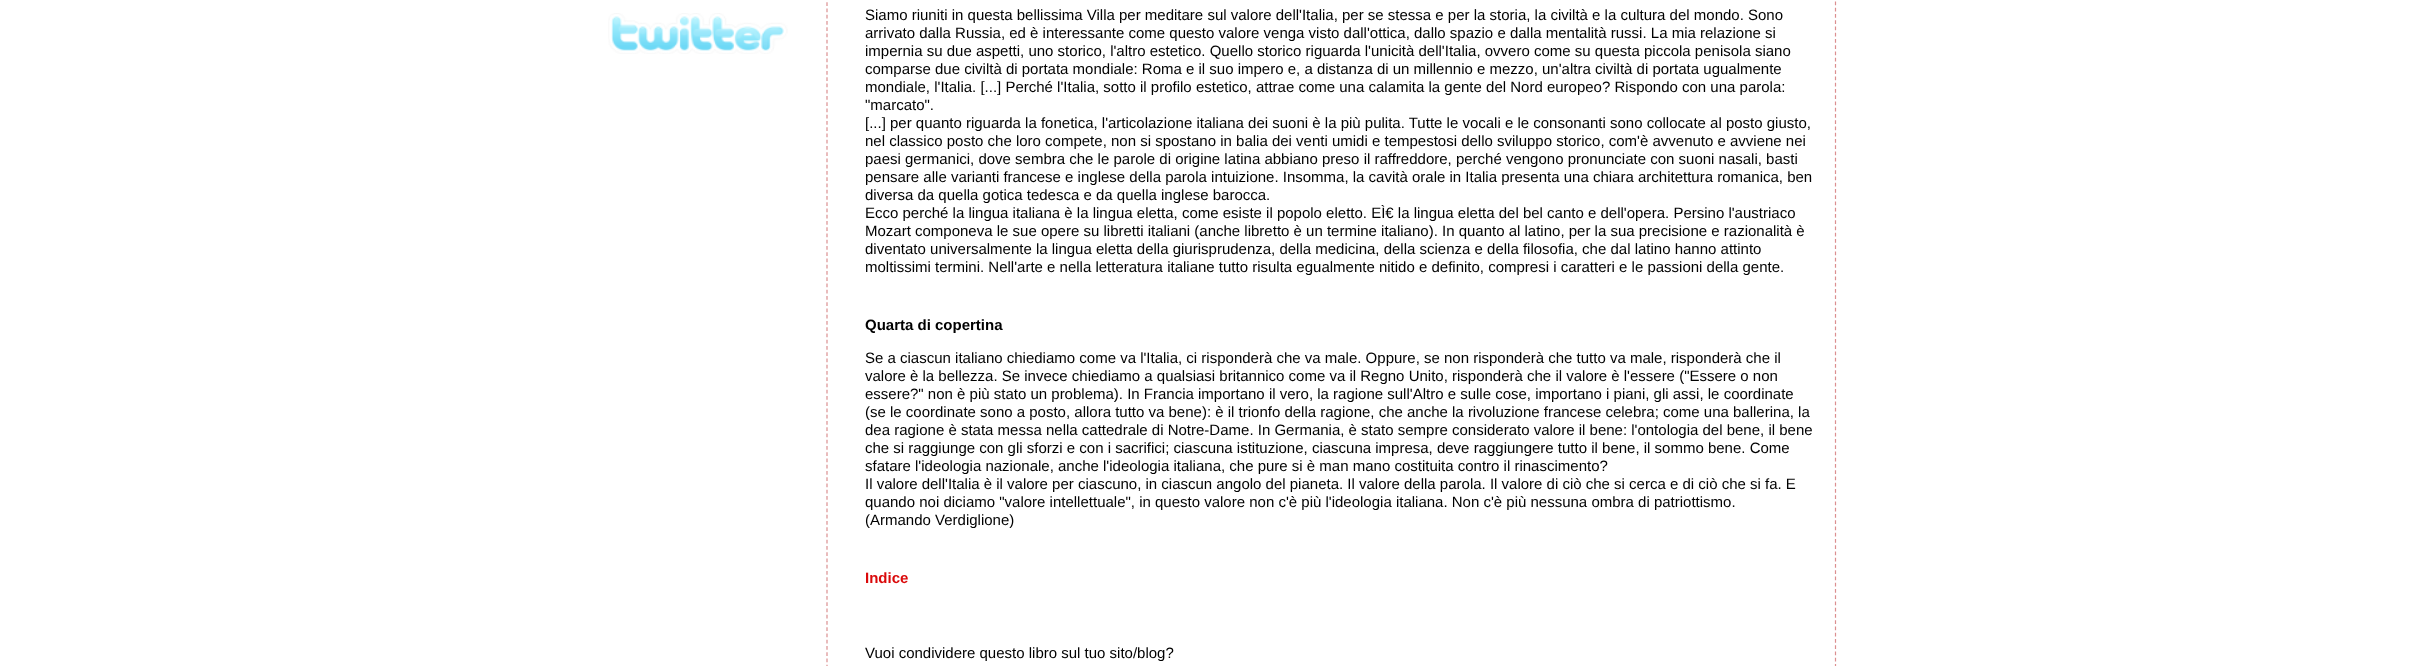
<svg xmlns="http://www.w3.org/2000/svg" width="2422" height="666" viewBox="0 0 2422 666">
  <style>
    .t1 { font: 15px Liberation Sans; fill: #000; }
    .t2 { font: bold 15px Liberation Sans; fill: #000; }
    .t3 { font: bold 15px Liberation Sans; fill: #da090a; }
  </style>
  <rect width="100%" height="100%" fill="#fff"/>
  <path d="M1835.5-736V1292.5" fill="none" stroke="#db8f90" stroke-width="1.2" stroke-dasharray="3.75 2.5"/>
  <image x="608" y="13" width="180" height="41" href="images/1.png"/>
  <path d="M827-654V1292.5" fill="none" stroke="#db8f90" stroke-width="1.2" stroke-dasharray="3.75 2.5"/>
  <text x="865" y="20" class="t1">Siamo riuniti in questa bellissima Villa per meditare sul valore dell'Italia, per se stessa e per la storia, la civiltà e la cultura del mondo. Sono</text>
  <text x="865" y="38" class="t1">arrivato dalla Russia, ed è interessante come questo valore venga visto dall'ottica, dallo spazio e dalla mentalità russi. La mia relazione si</text>
  <text x="865" y="56" class="t1">impernia su due aspetti, uno storico, l'altro estetico. Quello storico riguarda l'unicità dell'Italia, ovvero come su questa piccola penisola siano</text>
  <text x="865" y="74" class="t1">comparse due civiltà di portata mondiale: Roma e il suo impero e, a distanza di un millennio e mezzo, un'altra civiltà di portata ugualmente</text>
  <text x="865" y="92" class="t1">mondiale, l'Italia. [...] Perché l'Italia, sotto il profilo estetico, attrae come una calamita la gente del Nord europeo? Rispondo con una parola:</text>
  <text x="865" y="110" class="t1">"marcato".</text>
  <text x="865" y="128" class="t1">[...] per quanto riguarda la fonetica, l'articolazione italiana dei suoni è la più pulita. Tutte le vocali e le consonanti sono collocate al posto giusto,</text>
  <text x="865" y="146" class="t1">nel classico posto che loro compete, non si spostano in balia dei venti umidi e tempestosi dello sviluppo storico, com'è avvenuto e avviene nei</text>
  <text x="865" y="164" class="t1">paesi germanici, dove sembra che le parole di origine latina abbiano preso il raffreddore, perché vengono pronunciate con suoni nasali, basti</text>
  <text x="865" y="182" class="t1">pensare alle varianti francese e inglese della parola intuizione. Insomma, la cavità orale in Italia presenta una chiara architettura romanica, ben</text>
  <text x="865" y="200" class="t1">diversa da quella gotica tedesca e da quella inglese barocca.</text>
  <text x="865" y="218" class="t1">Ecco perché la lingua italiana è la lingua eletta, come esiste il popolo eletto. EÌ€ la lingua eletta del bel canto e dell'opera. Persino l'austriaco</text>
  <text x="865" y="236" class="t1">Mozart componeva le sue opere su libretti italiani (anche libretto è un termine italiano). In quanto al latino, per la sua precisione e razionalità è</text>
  <text x="865" y="254" class="t1">diventato universalmente la lingua eletta della giurisprudenza, della medicina, della scienza e della filosofia, che dal latino hanno attinto</text>
  <text x="865" y="272" class="t1">moltissimi termini. Nell'arte e nella letteratura italiane tutto risulta egualmente nitido e definito, compresi i caratteri e le passioni della gente.</text>
  <text x="865" y="330" class="t2">Quarta di copertina</text>
  <text x="865" y="363" class="t1">Se a ciascun italiano chiediamo come va l'Italia, ci risponderà che va male. Oppure, se non risponderà che tutto va male, risponderà che il</text>
  <text x="865" y="381" class="t1">valore è la bellezza. Se invece chiediamo a qualsiasi britannico come va il Regno Unito, risponderà che il valore è l'essere ("Essere o non</text>
  <text x="865" y="399" class="t1">essere?" non è più stato un problema). In Francia importano il vero, la ragione sull'Altro e sulle cose, importano i piani, gli assi, le coordinate</text>
  <text x="865" y="417" class="t1">(se le coordinate sono a posto, allora tutto va bene): è il trionfo della ragione, che anche la rivoluzione francese celebra; come una ballerina, la</text>
  <text x="865" y="435" class="t1">dea ragione è stata messa nella cattedrale di Notre-Dame. In Germania, è stato sempre considerato valore il bene: l'ontologia del bene, il bene</text>
  <text x="865" y="453" class="t1">che si raggiunge con gli sforzi e con i sacrifici; ciascuna istituzione, ciascuna impresa, deve raggiungere tutto il bene, il sommo bene. Come</text>
  <text x="865" y="471" class="t1">sfatare l'ideologia nazionale, anche l'ideologia italiana, che pure si è man mano costituita contro il rinascimento?</text>
  <text x="865" y="489" class="t1">Il valore dell'Italia è il valore per ciascuno, in ciascun angolo del pianeta. Il valore della parola. Il valore di ciò che si cerca e di ciò che si fa. E</text>
  <text x="865" y="507" class="t1">quando noi diciamo "valore intellettuale", in questo valore non c'è più l'ideologia italiana. Non c'è più nessuna ombra di patriottismo.</text>
  <text x="865" y="525" class="t1">(Armando Verdiglione)</text>
  <text x="865" y="583" class="t3">Indice</text>
  <text x="865" y="658" class="t1">Vuoi condividere questo libro sul tuo sito/blog?</text>
</svg>
